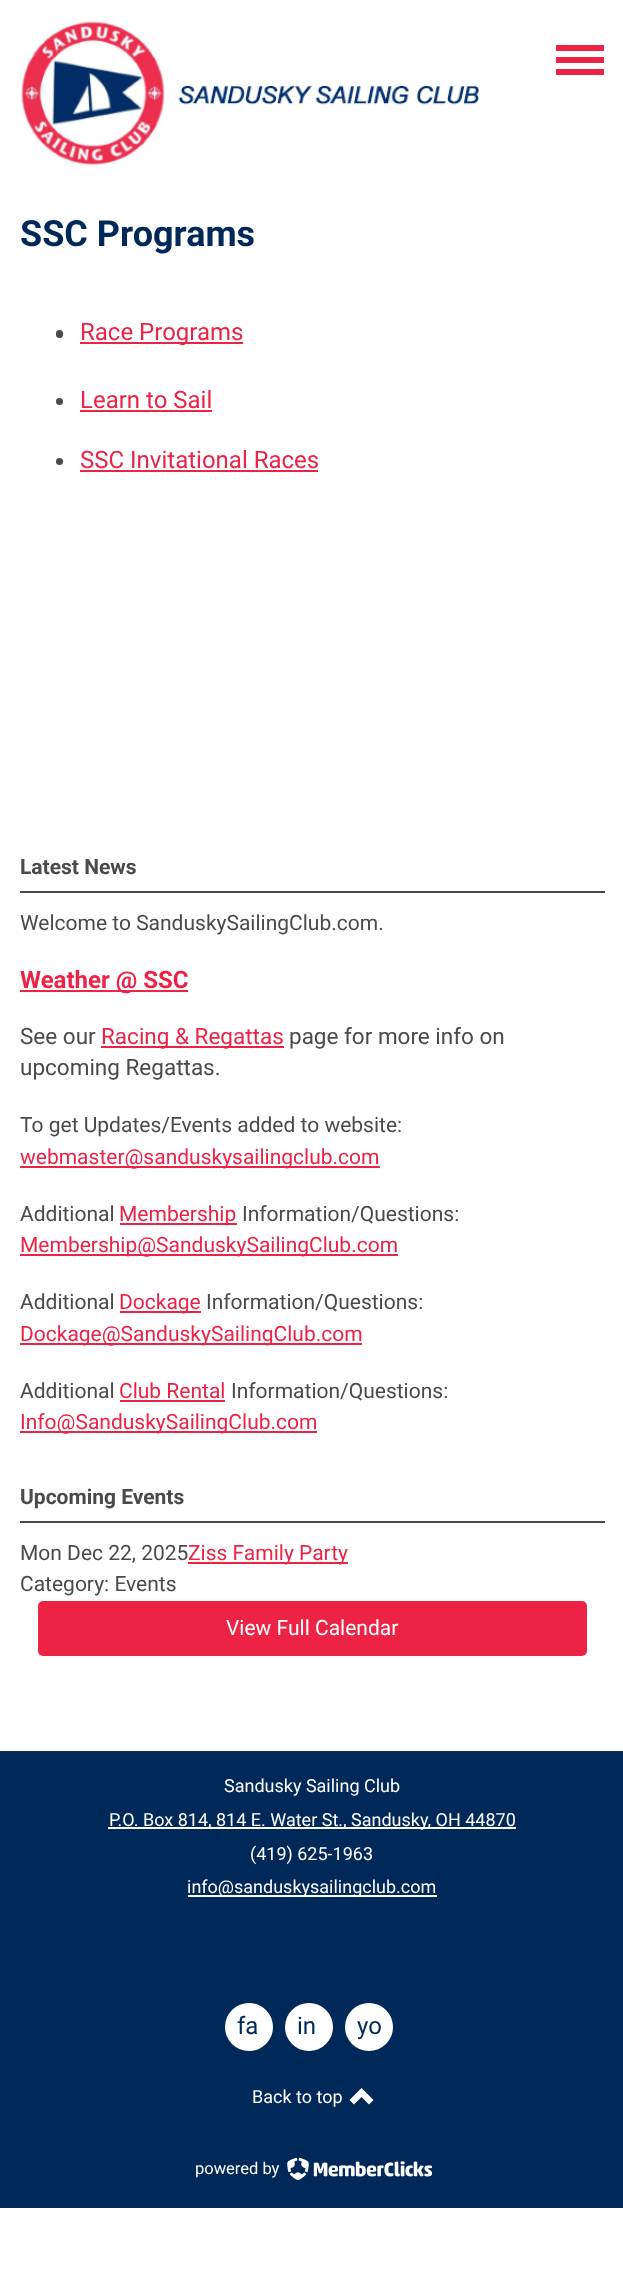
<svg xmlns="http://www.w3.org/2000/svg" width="623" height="2291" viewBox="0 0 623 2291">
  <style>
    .t1 { font: bold 36px Roboto; fill: #002859; }
    .t2 { font: 24px Roboto; fill: #ed2346; }
    .t3 { font: bold 21px Roboto; fill: #4a4a4a; }
    .t4 { font: 21px Roboto; fill: #4a4a4a; }
    .t5 { font: bold 24px Roboto; fill: #ed2346; }
    .t6 { font: 22.5px Roboto; fill: #4a4a4a; }
    .t7 { font: 22.5px Roboto; fill: #ed2346; }
    .t8 { font: 21px Roboto; fill: #ed2346; }
    .t9 { font: 21px Roboto; fill: #fff; }
    .t10 { font: 18px Roboto; fill: #fff; }
    .t11 { font: 24px Roboto; fill: #002859; }
    .t12 { font: 16.5px Roboto; fill: #fff; }
  </style>
  <rect width="100%" height="100%" fill="#fff"/>
  <image x="20" y="20" width="459" height="147" href="images/1.png"/>
  <path d="M556 45H604V51H556ZM556 57H604V63H556ZM556 69H604V75H556Z" fill="#ed2346"/>
  <text x="20" y="246" class="t1">SSC Programs</text>
  <rect x="56" y="330" width="7" height="8" rx="3.5" fill="#4a4a4a"/>
  <rect x="80" y="342" width="163" height="2" fill="#ed2346"/>
  <text x="80" y="340" class="t2">Race Programs</text>
  <circle cx="59.5" cy="401.5" r="3.5" fill="#4a4a4a"/>
  <text x="80" y="408" class="t2">Learn to Sail</text>
  <rect x="80" y="410" width="132" height="2" fill="#ed2346"/>
  <circle cx="59.5" cy="461.5" r="3.5" fill="#4a4a4a"/>
  <text x="80" y="468" class="t2">SSC Invitational Races</text>
  <rect x="80" y="470" width="238" height="2" fill="#ed2346"/>
  <rect x="20" y="891" width="585" height="2" fill="#4a4a4a"/>
  <text x="20" y="874" class="t3">Latest News</text>
  <text x="20" y="930" class="t4">Welcome to SanduskySailingClub.com.</text>
  <rect x="20" y="990" width="168" height="2" fill="#ed2346"/>
  <text x="20" y="988" class="t5">Weather @ SSC</text>
  <text x="20" y="1044" class="t6">See our</text>
  <rect x="101" y="1046" width="183" height="2" fill="#ed2346"/>
  <text x="101" y="1044" class="t7">Racing &amp; Regattas</text>
  <text x="289" y="1044" class="t6">page for more info on</text>
  <text x="20" y="1075" class="t6">upcoming Regattas.</text>
  <text x="20" y="1132" class="t4">To get Updates/Events added to website:</text>
  <rect x="20" y="1166" width="360" height="2" fill="#ed2346"/>
  <text x="20" y="1164" class="t8">webmaster@sanduskysailingclub.com</text>
  <text x="20" y="1221" class="t4">Additional</text>
  <rect x="120" y="1223" width="117" height="2" fill="#ed2346"/>
  <text x="119" y="1221" class="t8">Membership</text>
  <text x="242" y="1221" class="t4">Information/Questions:</text>
  <rect x="20" y="1254" width="378" height="2" fill="#ed2346"/>
  <text x="20" y="1252" class="t8">Membership@SanduskySailingClub.com</text>
  <text x="20" y="1309" class="t4">Additional</text>
  <rect x="120" y="1311" width="81" height="2" fill="#ed2346"/>
  <text x="119" y="1309" class="t8">Dockage</text>
  <text x="206" y="1309" class="t4">Information/Questions:</text>
  <rect x="20" y="1343" width="342" height="2" fill="#ed2346"/>
  <text x="20" y="1341" class="t8">Dockage@SanduskySailingClub.com</text>
  <text x="20" y="1398" class="t4">Additional</text>
  <text x="119" y="1398" class="t8">Club Rental</text>
  <rect x="120" y="1400" width="105" height="2" fill="#ed2346"/>
  <text x="231" y="1398" class="t4">Information/Questions:</text>
  <rect x="20" y="1431" width="297" height="2" fill="#ed2346"/>
  <text x="20" y="1429" class="t8">Info@SanduskySailingClub.com</text>
  <rect x="20" y="1521" width="585" height="2" fill="#4a4a4a"/>
  <text x="20" y="1504" class="t3">Upcoming Events</text>
  <text x="20" y="1560" class="t4">Mon Dec 22, 2025</text>
  <rect x="188" y="1562" width="160" height="2" fill="#ed2346"/>
  <text x="188" y="1560" class="t8">Ziss Family Party</text>
  <text x="20" y="1591" class="t4">Category: Events</text>
  <rect x="38" y="1601" width="549" height="55" rx="5" fill="#ed2346"/>
  <text x="226" y="1635" class="t9">View Full Calendar</text>
  <rect x="0" y="1751" width="623" height="457" fill="#002859"/>
  <text x="224" y="1792" class="t10">Sandusky Sailing Club</text>
  <rect x="108" y="1827" width="408" height="2" fill="#fff"/>
  <text x="109" y="1826" class="t10">P.O. Box 814, 814 E. Water St., Sandusky, OH 44870</text>
  <text x="250" y="1860" class="t10">(419) 625-1963</text>
  <rect x="188" y="1895" width="249" height="2" fill="#fff"/>
  <text x="187" y="1893" class="t10">info@sanduskysailingclub.com</text>
  <circle cx="249" cy="2027" r="24" fill="#fff"/>
  <text x="237" y="2034" class="t11">fa</text>
  <circle cx="309" cy="2027" r="24" fill="#fff"/>
  <text x="297" y="2034" class="t11">in</text>
  <circle cx="369" cy="2027" r="24" fill="#fff"/>
  <text x="357" y="2034" class="t11">yo</text>
  <text x="252" y="2103" class="t10">Back to top</text>
  <path d="M349.5 2100L354 2104.5L361.5 2097L369 2104.5L373.5 2100L361.5 2088Z" fill="#fff"/>
  <text x="195" y="2174" class="t12">powered by</text>
  <image x="287" y="2157" width="22" height="24" href="images/2.png"/>
  <image x="313" y="2161" width="119" height="16" href="images/3.png"/>
</svg>
